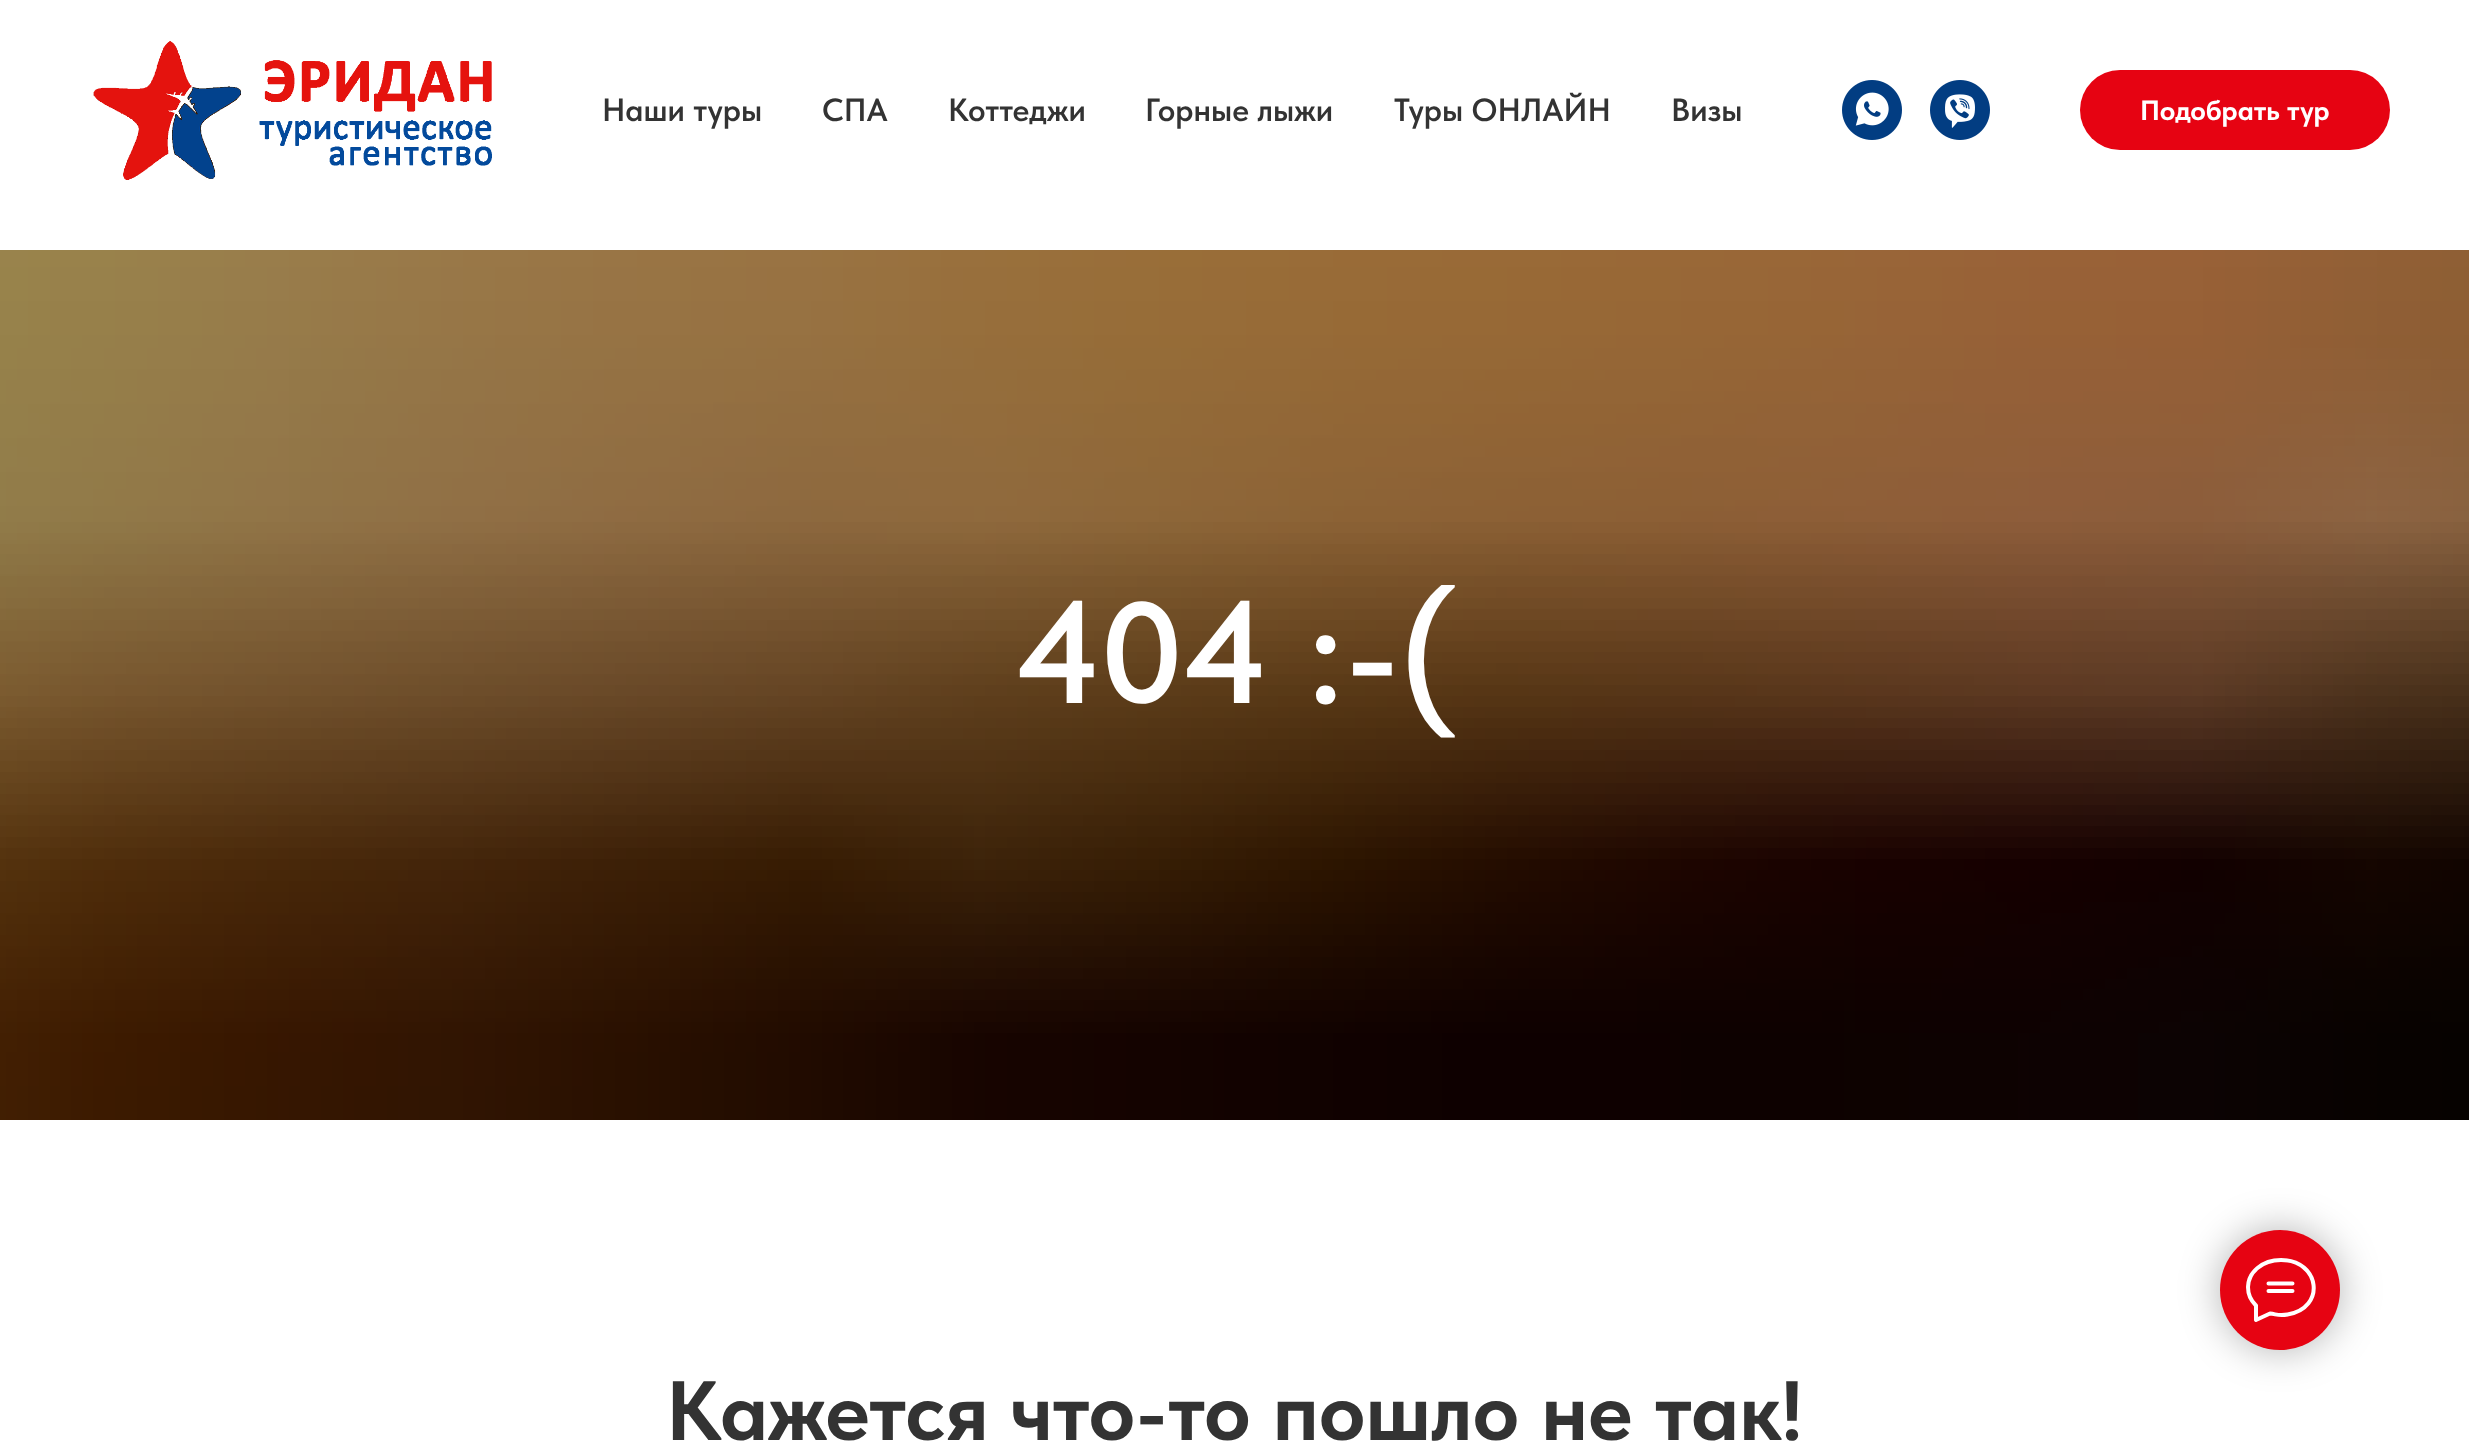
<svg xmlns="http://www.w3.org/2000/svg" width="2469" height="1449" viewBox="0 0 2469 1449">
  <style>
    .t1 { font: 600 32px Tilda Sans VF; fill: #333; }
    .t2 { font: bold 28px Tilda Sans VF; fill: #fff; }
    .t3 { font: 600 144px Tilda Sans VF; letter-spacing: 1px; fill: #fff; }
    .t4 { font: bold 84px Tilda Sans VF; fill: #333; }
  </style>
  <rect width="100%" height="100%" fill="#fff"/>
  <image x="93" y="41" width="399" height="139" href="images/1.png"/>
  <text x="602" y="121" class="t1">Наши туры</text>
  <text x="822" y="121" class="t1">СПА</text>
  <text x="948" y="121" class="t1">Коттеджи</text>
  <text x="1145" y="121" class="t1">Горные лыжи</text>
  <text x="1394" y="121" class="t1">Туры ОНЛАЙН</text>
  <text x="1671" y="121" class="t1">Визы</text>
  <image x="1842" y="80" width="60" height="60" href="images/2.png"/>
  <image x="1930" y="80" width="60" height="60" href="images/3.png"/>
  <rect x="2080" y="70" width="310" height="80" rx="40" fill="#e60312"/>
  <text x="2140" y="120" class="t2">Подобрать тур</text>
  <image x="0" y="250" width="2469" height="870" href="images/4.png"/>
  <text x="1017" y="703" class="t3">404 :-(</text>
  <text x="666" y="1440" class="t4">Кажется что-то пошло не так!</text>
  <rect x="2220" y="1230" width="120" height="120" rx="60" fill="#0000004d" filter="blur(20px)"/>
  <circle cx="2280" cy="1290" r="60" fill="#e60312"/>
  <path d="M2268.5 1283.5H2292.5M2268.5 1291H2292.5M2255.5 1305C2245 1294.5 2245.5 1278 2257.5 1268C2264 1262.5 2272.5 1260 2281 1260C2320 1260 2326.5 1308 2287.5 1314.5C2279 1316 2277.5 1314.5 2270 1313.5L2256 1320V1305.5Z" fill="none" stroke="#fff" stroke-width="4" stroke-linecap="round" stroke-linejoin="round"/>
</svg>
